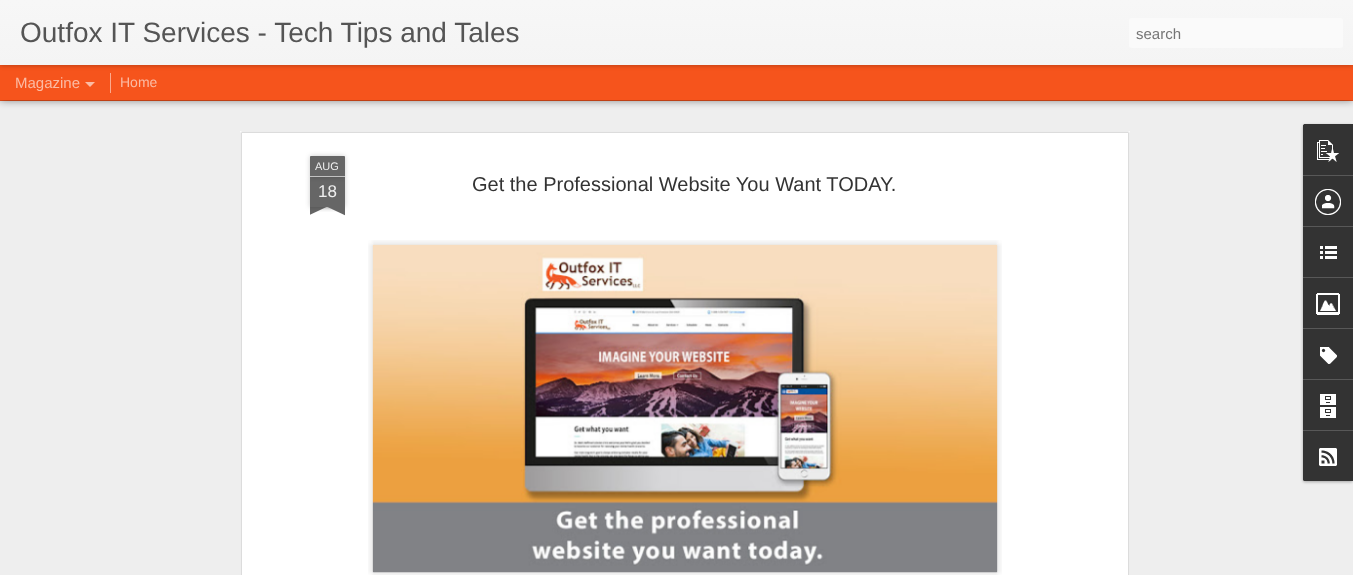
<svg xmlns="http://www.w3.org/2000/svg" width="1353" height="575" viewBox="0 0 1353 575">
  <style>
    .t1 { font: 28px Liberation Sans; fill: #555; }
    .t2 { font: 15px Liberation Sans; fill: #757575; }
    .t3 { font: 15px Liberation Sans; fill: #fbbba4; }
    .t4 { font: 14px Liberation Sans; fill: #fbbba4; }
    .t5 { font: 11px Liberation Sans; fill: #eee; }
    .t6 { font: 17px Liberation Sans; fill: #eee; }
    .t7 { font: 20px Liberation Sans; fill: #333; }
  </style>
  <defs>
    <linearGradient id="g1" gradientUnits="userSpaceOnUse" x1="0" y1="0" x2="0" y2="65"><stop offset="0" stop-color="#f7f7f7"/><stop offset="1" stop-color="#f4f4f4"/></linearGradient>
    <clipPath id="clip1"><rect x="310" y="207" width="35" height="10"/></clipPath>
    <clipPath id="clip2"><rect x="310" y="207" width="35" height="10"/></clipPath>
  </defs>
  <rect width="100%" height="100%" fill="#f6541c"/>
  <rect x="0" y="101" width="1353" height="474" fill="#eee"/>
  <rect x="0" y="65" width="1353" height="35" fill="#00000080" filter="blur(4px)"/>
  <rect x="0" y="65" width="1353" height="35" fill="#f6541c"/>
  <rect x="110" y="73" width="1" height="20" fill="#fbaa8e"/>
  <rect x="0" y="0" width="1353" height="65" fill="#0000004d" filter="blur(2.5px)"/>
  <rect x="0" y="0" width="1353" height="65" fill="url(#g1)"/>
  <text x="20" y="42" class="t1">Outfox IT Services - Tech Tips and Tales</text>
  <rect x="1129" y="18" width="214" height="30" rx="3" fill="#fafafa"/>
  <text x="1136" y="39" class="t2">search</text>
  <text x="15" y="88" class="t3">Magazine</text>
  <path d="M85 82H95L90 87Z" fill="#fbbba4"/>
  <text x="120" y="87" class="t4">Home</text>
  <rect x="240" y="131" width="890" height="444" fill="#fff"/>
  <image x="240" y="131" width="890" height="444" href="images/1.png"/>
  <rect x="310" y="177" width="35" height="30" fill="#00000033" filter="blur(2.5px)"/>
  <rect x="310" y="177" width="35" height="30" fill="#666"/>
  <rect x="310" y="156" width="35" height="21" rx="1" fill="#00000033" filter="blur(2.5px)"/>
  <path d="M311 156H344C344.5 156 345 156.5 345 157V177H310V157C310 156.5 310.5 156 311 156Z" fill="#666"/>
  <rect x="310" y="176" width="35" height="1" fill="#c2c2c2"/>
  <text x="315" y="170" class="t5">AUG</text>
  <text x="318" y="197" class="t6">18</text>
  <g clip-path="url(#clip1)">
    <rect x="301" y="197" width="50" height="10" fill="#00000033" filter="blur(2.5px)"/>
  </g>
  <g clip-path="url(#clip2)">
    <path d="M301 208L346 187L350 196L305 217Z" fill="#666"/>
  </g>
  <g clip-path="url(#clip1)">
    <rect x="304" y="197" width="50" height="10" fill="#00000033" filter="blur(2.5px)"/>
  </g>
  <g clip-path="url(#clip2)">
    <path d="M308 187L353 208L349 217L304 196Z" fill="#666"/>
  </g>
  <text x="472" y="191" class="t7">Get the Professional Website You Want TODAY.</text>
  <image x="368" y="240" width="634" height="335" href="images/2.png"/>
  <image x="372" y="244" width="626" height="329" href="images/3.png"/>
  <rect x="1303" y="125" width="50" height="357" rx="2" fill="#0000004d" filter="blur(1.5px)"/>
  <path d="M1305 124H1353V481H1305C1304 481 1303 480 1303 479V126C1303 125 1304 124 1305 124Z" fill="#333"/>
  <path d="M1305 124H1353V175H1303V126C1303 125 1304 124 1305 124Z" fill="#333"/>
  <image x="1317" y="140" width="22" height="22" href="images/4.png"/>
  <rect x="1303" y="175" width="50" height="1" fill="#585858"/>
  <image x="1315" y="189" width="26" height="26" href="images/5.png"/>
  <rect x="1303" y="226" width="50" height="1" fill="#585858"/>
  <image x="1320" y="246" width="17" height="13" href="images/6.png"/>
  <rect x="1303" y="277" width="50" height="1" fill="#585858"/>
  <image x="1316" y="293" width="24" height="22" href="images/7.png"/>
  <rect x="1303" y="328" width="50" height="1" fill="#585858"/>
  <image x="1320" y="347" width="17" height="17" href="images/8.png"/>
  <rect x="1303" y="379" width="50" height="1" fill="#585858"/>
  <image x="1320" y="394" width="16" height="24" href="images/9.png"/>
  <path d="M1303 430H1353V481H1305C1304 481 1303 480 1303 479Z" fill="#333"/>
  <rect x="1303" y="430" width="50" height="1" fill="#585858"/>
  <image x="1319" y="448" width="18" height="18" href="images/10.png"/>
</svg>
